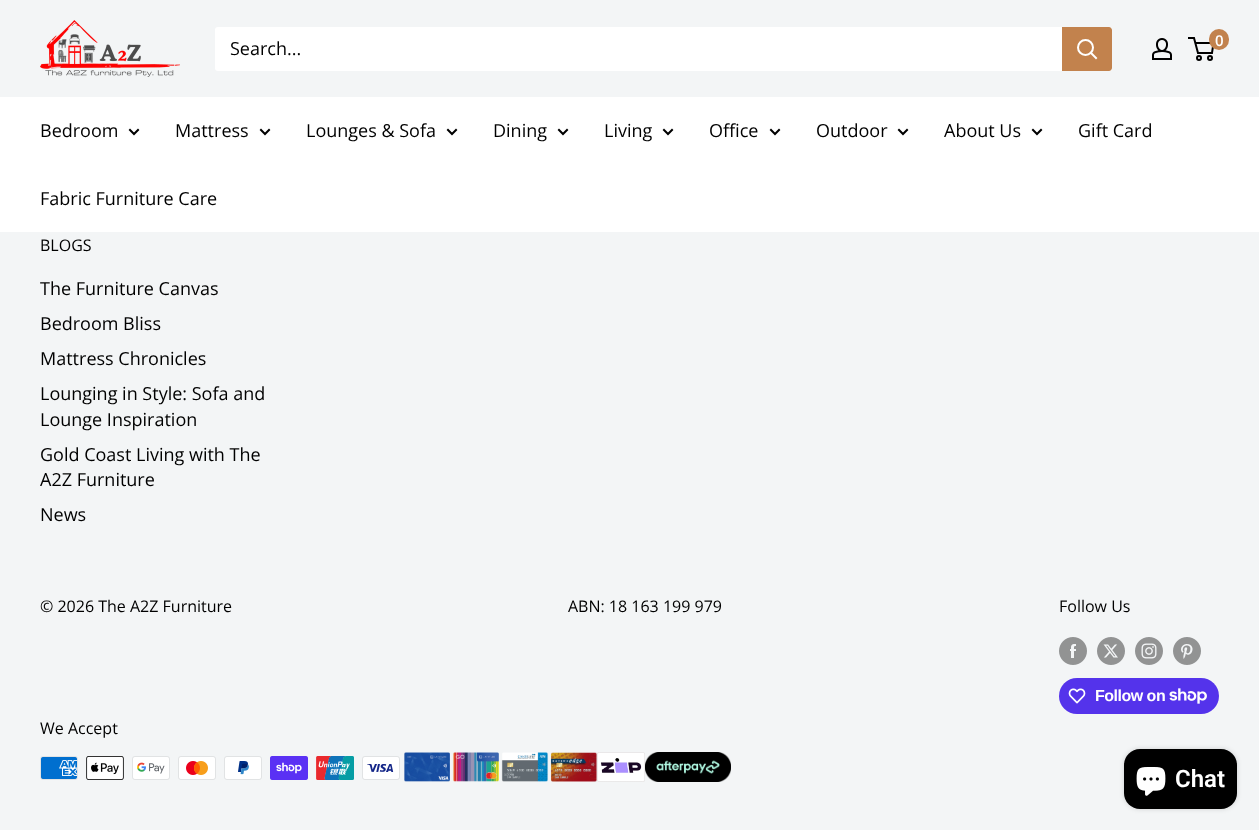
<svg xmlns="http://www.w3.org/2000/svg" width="1259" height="830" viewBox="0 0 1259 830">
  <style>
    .t1 { font: 18px Open Sans; fill: #000; }
    .t2 { font: 600 15px Open Sans; fill: #fff; }
    .t3 { font: 16px Open Sans; fill: #000; }
    .t4 { font: bold 16px Liberation Sans; letter-spacing: -0.5px; fill: #fff; }
    .t5 { font: 600 24px Roboto; fill: #fff; }
  </style>
  <rect width="100%" height="100%" fill="#f3f5f6"/>
  <image x="40" y="20" width="140" height="57" href="images/1.png"/>
  <rect x="215" y="27" width="897" height="44" rx="3" fill="#fff"/>
  <text x="230" y="55" class="t1">Search...</text>
  <path d="M1062 27H1109C1110.5 27 1112 28.5 1112 30V68C1112 69.5 1110.5 71 1109 71H1062Z" fill="#c2824d"/>
  <path d="M1096 58L1091 53" fill="none" stroke="#fff" stroke-width="2" stroke-linecap="square"/>
  <circle cx="1085.5" cy="47.5" r="7.5" fill="none" stroke="#fff" stroke-width="2"/>
  <image x="1152" y="38" width="20" height="22" href="images/2.png"/>
  <circle cx="1199" cy="58" r="2" fill="none" stroke="#000" stroke-width="2"/>
  <circle cx="1210" cy="58" r="2" fill="none" stroke="#000" stroke-width="2"/>
  <path d="M1195.5 43H1213.5L1212 53H1198L1194 38H1188" fill="none" stroke="#000" stroke-width="2"/>
  <rect x="1209" y="29" width="20" height="21" rx="10" fill="#c2824d"/>
  <text x="1215" y="46" class="t2">0</text>
  <rect x="0" y="97" width="1259" height="135" fill="#fff"/>
  <text x="40" y="137" class="t1">Bedroom</text>
  <path d="M138 130L134 134L130 130" fill="none" stroke="#000" stroke-width="2" stroke-linecap="square"/>
  <text x="175" y="137" class="t1">Mattress</text>
  <path d="M269 130L265 134L261 130" fill="none" stroke="#000" stroke-width="2" stroke-linecap="square"/>
  <text x="306" y="137" class="t1">Lounges &amp; Sofa</text>
  <path d="M456 130L452 134L448 130" fill="none" stroke="#000" stroke-width="2" stroke-linecap="square"/>
  <text x="493" y="137" class="t1">Dining</text>
  <path d="M567 130L563 134L559 130" fill="none" stroke="#000" stroke-width="2" stroke-linecap="square"/>
  <text x="604" y="137" class="t1">Living</text>
  <path d="M672 130L668 134L664 130" fill="none" stroke="#000" stroke-width="2" stroke-linecap="square"/>
  <text x="709" y="137" class="t1">Office</text>
  <path d="M779 130L775 134L771 130" fill="none" stroke="#000" stroke-width="2" stroke-linecap="square"/>
  <text x="816" y="137" class="t1">Outdoor</text>
  <path d="M907 130L903 134L899 130" fill="none" stroke="#000" stroke-width="2" stroke-linecap="square"/>
  <text x="944" y="137" class="t1">About Us</text>
  <path d="M1041 130L1037 134L1033 130" fill="none" stroke="#000" stroke-width="2" stroke-linecap="square"/>
  <text x="1078" y="137" class="t1">Gift Card</text>
  <text x="40" y="205" class="t1">Fabric Furniture Care</text>
  <text x="40" y="251" class="t3">BLOGS</text>
  <text x="40" y="295" class="t1">The Furniture Canvas</text>
  <text x="40" y="330" class="t1">Bedroom Bliss</text>
  <text x="40" y="365" class="t1">Mattress Chronicles</text>
  <text x="40" y="400" class="t1">Lounging in Style: Sofa and</text>
  <text x="40" y="426" class="t1">Lounge Inspiration</text>
  <text x="40" y="461" class="t1">Gold Coast Living with The</text>
  <text x="40" y="486" class="t1">A2Z Furniture</text>
  <text x="40" y="521" class="t1">News</text>
  <text x="40" y="612" class="t3">© 2026 The A2Z Furniture</text>
  <text x="568" y="612" class="t3">ABN: 18 163 199 979</text>
  <text x="1059" y="612" class="t3">Follow Us</text>
  <image x="1059" y="637" width="28" height="28" href="images/3.png"/>
  <image x="1097" y="637" width="28" height="28" href="images/4.png"/>
  <image x="1135" y="637" width="28" height="28" href="images/5.png"/>
  <image x="1173" y="637" width="28" height="28" href="images/6.png"/>
  <rect x="1059" y="678" width="160" height="36" rx="18" fill="#5433eb"/>
  <image x="1068" y="688" width="18" height="16" href="images/7.png"/>
  <text x="1095" y="701" class="t4">Follow on</text>
  <image x="1169" y="688" width="38" height="16" href="images/8.png"/>
  <text x="40" y="734" class="t3">We Accept</text>
  <image x="40" y="756" width="38" height="24" href="images/9.png"/>
  <image x="86" y="756" width="38" height="24" href="images/10.png"/>
  <image x="132" y="756" width="38" height="24" href="images/11.png"/>
  <image x="178" y="756" width="38" height="24" href="images/12.png"/>
  <image x="224" y="756" width="38" height="24" href="images/13.png"/>
  <image x="270" y="756" width="38" height="24" href="images/14.png"/>
  <image x="316" y="756" width="38" height="24" href="images/15.png"/>
  <image x="362" y="756" width="38" height="24" href="images/16.png"/>
  <image x="404" y="752" width="193" height="30" href="images/17.png"/>
  <image x="597" y="752" width="48" height="30" href="images/18.png"/>
  <image x="645" y="752" width="86" height="30" href="images/19.png"/>
  <rect x="1124" y="749" width="113" height="60" rx="16" fill="#00000026" filter="blur(2.5px)"/>
  <rect x="1124" y="749" width="113" height="60" rx="16" fill="#000"/>
  <image x="1136" y="767" width="30" height="29" href="images/20.png"/>
  <text x="1175" y="787" class="t5">Chat</text>
</svg>
